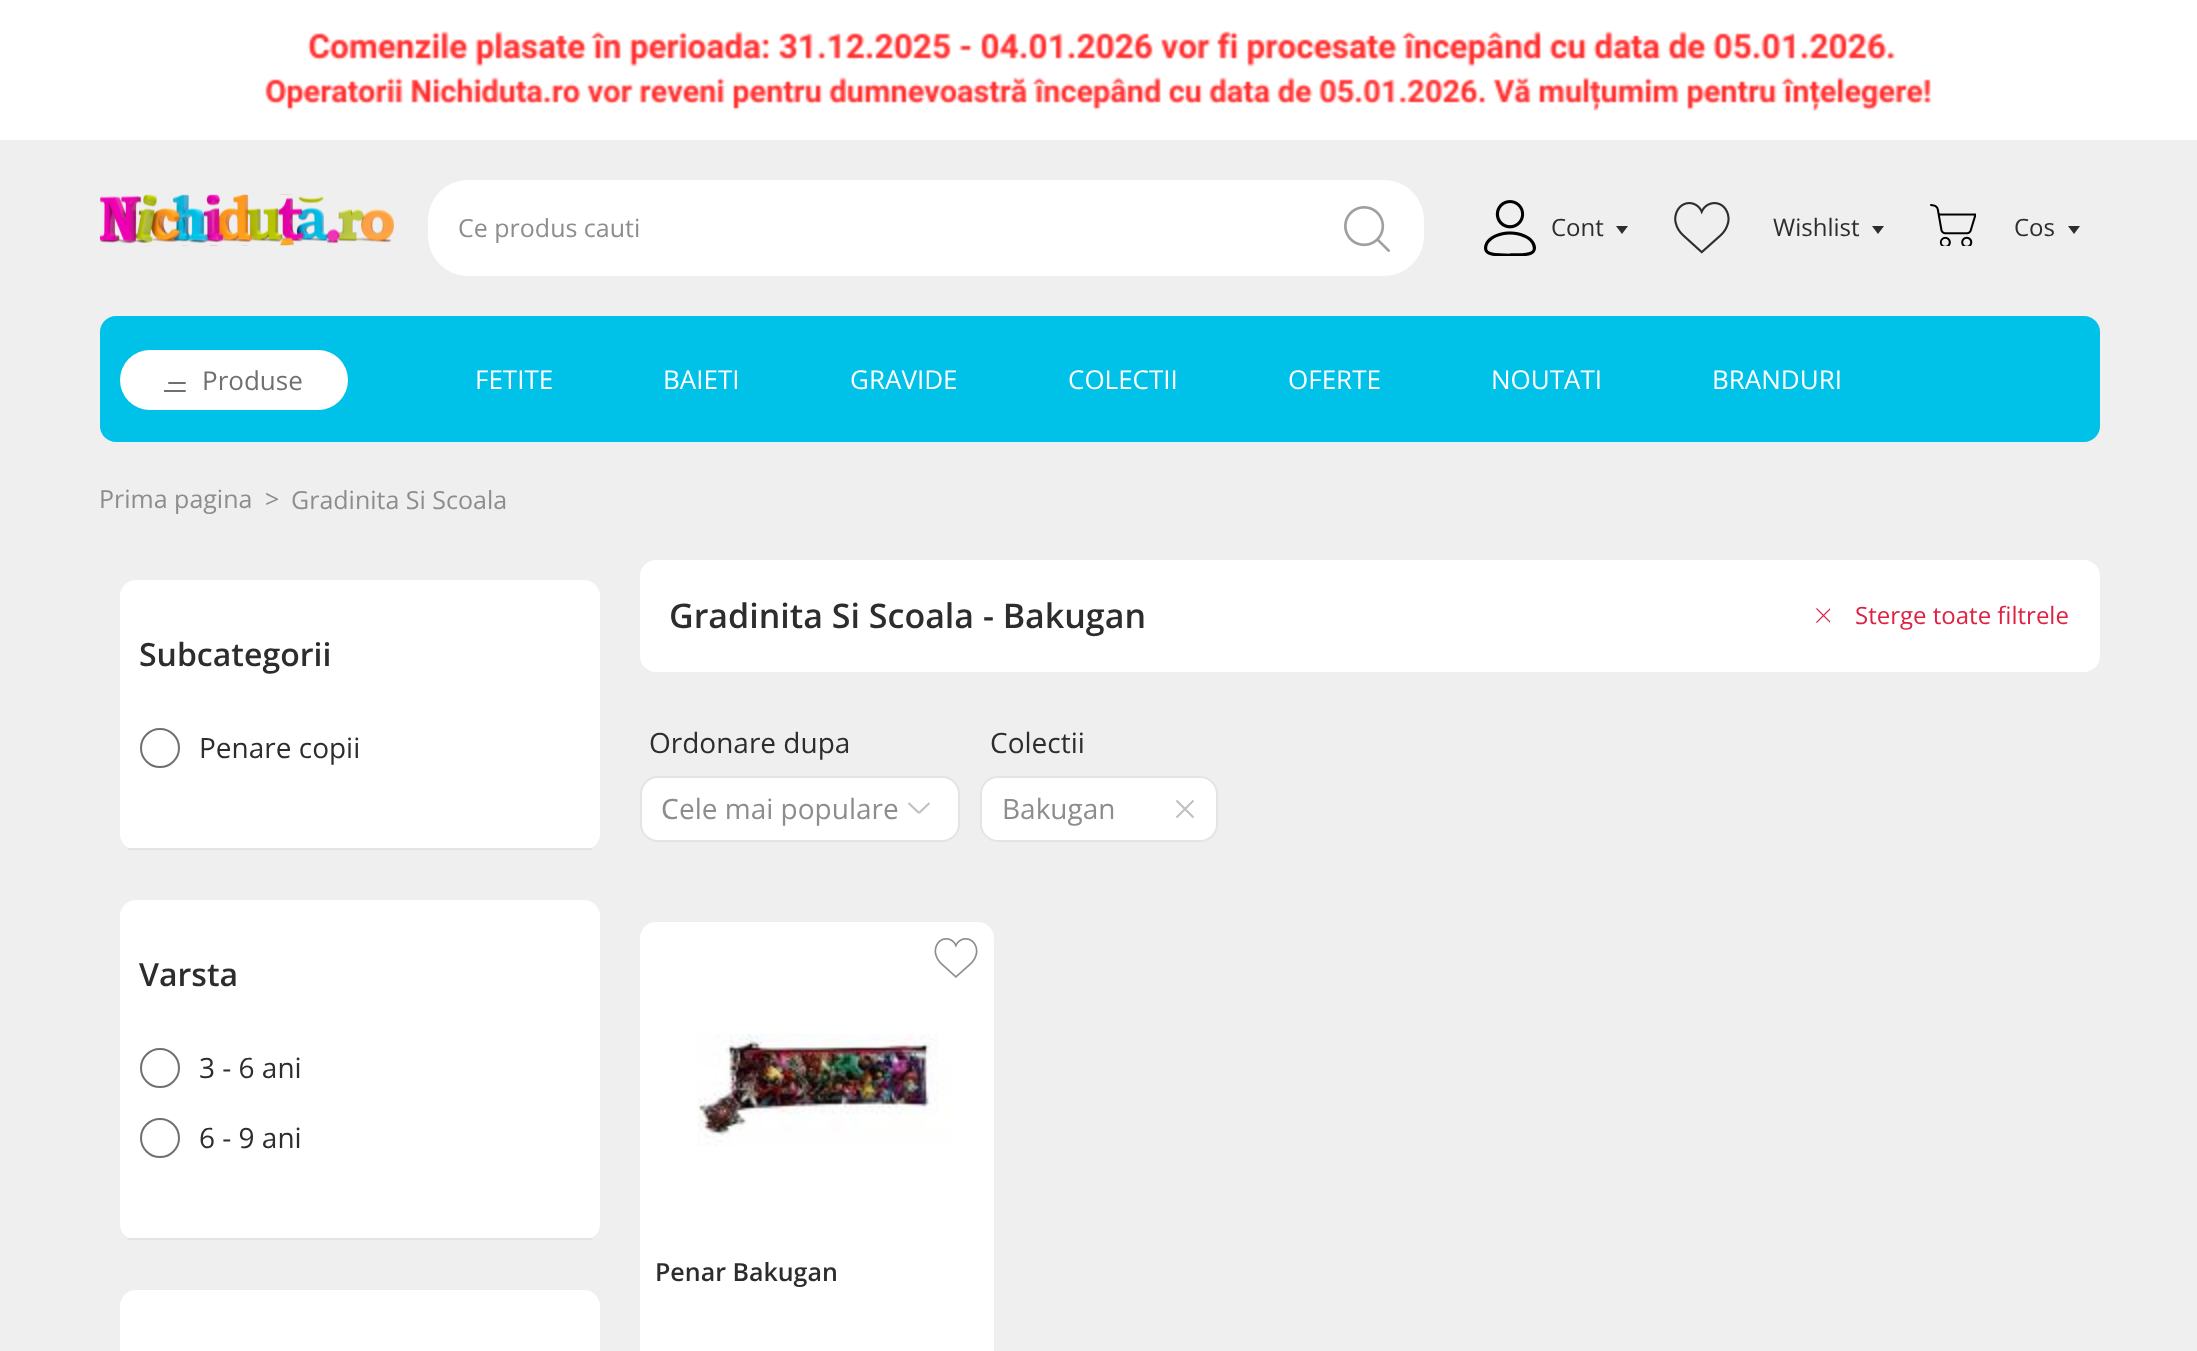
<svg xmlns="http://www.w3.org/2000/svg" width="2197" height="1351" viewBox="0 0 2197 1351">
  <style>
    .t1 { font: 25px Open Sans; fill: #8d8d8d; }
    .t2 { font: 24px Open Sans; fill: #2d2d2d; }
    .t3 { font: 26px Open Sans; fill: #707070; }
    .t4 { font: 26px Open Sans; fill: #fff; }
    .t5 { font: 600 32px Open Sans; fill: #2d2d2d; }
    .t6 { font: 28px Open Sans; fill: #2d2d2d; }
    .t7 { font: 600 34px Open Sans; fill: #2d2d2d; }
    .t8 { font: 24px Open Sans; fill: #de2041; }
    .t9 { font: 28px Noto Sans; fill: #8d8d8d; }
    .t10 { font: 28px Open Sans; fill: #8d8d8d; }
    .t11 { font: 600 25px Open Sans; fill: #2d2d2d; }
  </style>
  <defs>
    <clipPath id="clip1"><rect x="164" y="376" width="22" height="16"/></clipPath>
  </defs>
  <rect width="100%" height="100%" fill="#efefef"/>
  <rect x="0" y="0" width="2197" height="140" fill="#fff"/>
  <image x="265" y="31" width="1666" height="80" href="images/1.png"/>
  <image x="100" y="194" width="294" height="52" href="images/2.png"/>
  <rect x="428" y="180" width="996" height="96" rx="40" fill="#fff"/>
  <text x="458" y="237" class="t1">Ce produs cauti</text>
  <image x="1344" y="206" width="46" height="46" href="images/3.png"/>
  <image x="1484" y="200" width="52" height="56" href="images/4.png"/>
  <text x="1551" y="236" class="t2">Cont</text>
  <path d="M1622 234L1616 226H1628Z" fill="#2d2d2d"/>
  <image x="1674" y="202" width="56" height="52" href="images/5.png"/>
  <text x="1773" y="236" class="t2">Wishlist</text>
  <path d="M1878 234L1872 226H1884Z" fill="#2d2d2d"/>
  <image x="1930" y="204" width="46" height="42" href="images/6.png"/>
  <text x="2014" y="236" class="t2">Cos</text>
  <path d="M2074 234L2068 226H2080Z" fill="#2d2d2d"/>
  <rect x="100" y="316" width="2000" height="126" rx="16" fill="#00c1e8"/>
  <rect x="120" y="350" width="228" height="60" rx="30" fill="#fff"/>
  <path d="M169 383H185" fill="none" stroke="#707070" stroke-width="2" stroke-linecap="round"/>
  <g clip-path="url(#clip1)">
    <path d="M163 391H185" fill="none" stroke="#707070" stroke-width="2" stroke-linecap="round"/>
  </g>
  <text x="202" y="390" class="t3">Produse</text>
  <text x="475" y="389" class="t4">FETITE</text>
  <text x="663" y="389" class="t4">BAIETI</text>
  <text x="850" y="389" class="t4">GRAVIDE</text>
  <text x="1068" y="389" class="t4">COLECTII</text>
  <text x="1288" y="389" class="t4">OFERTE</text>
  <text x="1491" y="389" class="t4">NOUTATI</text>
  <text x="1712" y="389" class="t4">BRANDURI</text>
  <text x="99" y="508" class="t1">Prima pagina</text>
  <text x="265" y="508" class="t1">&gt;</text>
  <text x="291" y="509" class="t1">Gradinita Si Scoala</text>
  <rect x="120" y="580" width="480" height="270" rx="16" fill="#fff"/>
  <rect x="128" y="848" width="464" height="2" fill="#e4e4e4"/>
  <text x="139" y="666" class="t5">Subcategorii</text>
  <circle cx="160" cy="748" r="19" fill="none" stroke="#707070" stroke-width="2"/>
  <text x="199" y="758" class="t6">Penare copii</text>
  <rect x="120" y="900" width="480" height="340" rx="16" fill="#fff"/>
  <rect x="128" y="1238" width="464" height="2" fill="#e4e4e4"/>
  <text x="139" y="986" class="t5">Varsta</text>
  <circle cx="160" cy="1068" r="19" fill="none" stroke="#707070" stroke-width="2"/>
  <text x="199" y="1078" class="t6">3 - 6 ani</text>
  <circle cx="160" cy="1138" r="19" fill="none" stroke="#707070" stroke-width="2"/>
  <text x="199" y="1148" class="t6">6 - 9 ani</text>
  <rect x="120" y="1290" width="480" height="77" rx="16" fill="#fff"/>
  <rect x="640" y="560" width="1460" height="112" rx="16" fill="#fff"/>
  <text x="669" y="628" class="t7">Gradinita Si Scoala - Bakugan</text>
  <image x="1816" y="608" width="14" height="15" href="images/7.png"/>
  <text x="1855" y="624" class="t8">Sterge toate filtrele</text>
  <text x="649" y="753" class="t6">Ordonare dupa</text>
  <rect x="641" y="777" width="318" height="64" rx="17" fill="#fff" stroke="#e4e4e4" stroke-width="2"/>
  <text x="661" y="819" class="t9">C</text>
  <text x="679" y="819" class="t10">ele mai populare</text>
  <path d="M929.5 803L919 813ZM908.5 803L919 813Z" fill="none" stroke="#c1c0c0" stroke-width="2.1" stroke-linecap="round"/>
  <text x="990" y="753" class="t6">Colectii</text>
  <rect x="981" y="777" width="236" height="64" rx="17" fill="#fff" stroke="#e4e4e4" stroke-width="2"/>
  <text x="1002" y="819" class="t10">Bakugan</text>
  <path d="M1185 809L1176.5 817.5L1185 809L1176.5 800.5L1185 809L1193.5 800.5L1185 809L1193.5 817.5Z" fill="none" stroke="#c1c0c0" stroke-width="2.1"/>
  <rect x="640" y="922" width="354" height="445" rx="16" fill="#fff"/>
  <image x="934" y="938" width="44" height="40" href="images/8.png"/>
  <image x="697" y="1033" width="256" height="113" href="images/9.png"/>
  <text x="655" y="1281" class="t11">Penar Bakugan</text>
</svg>
